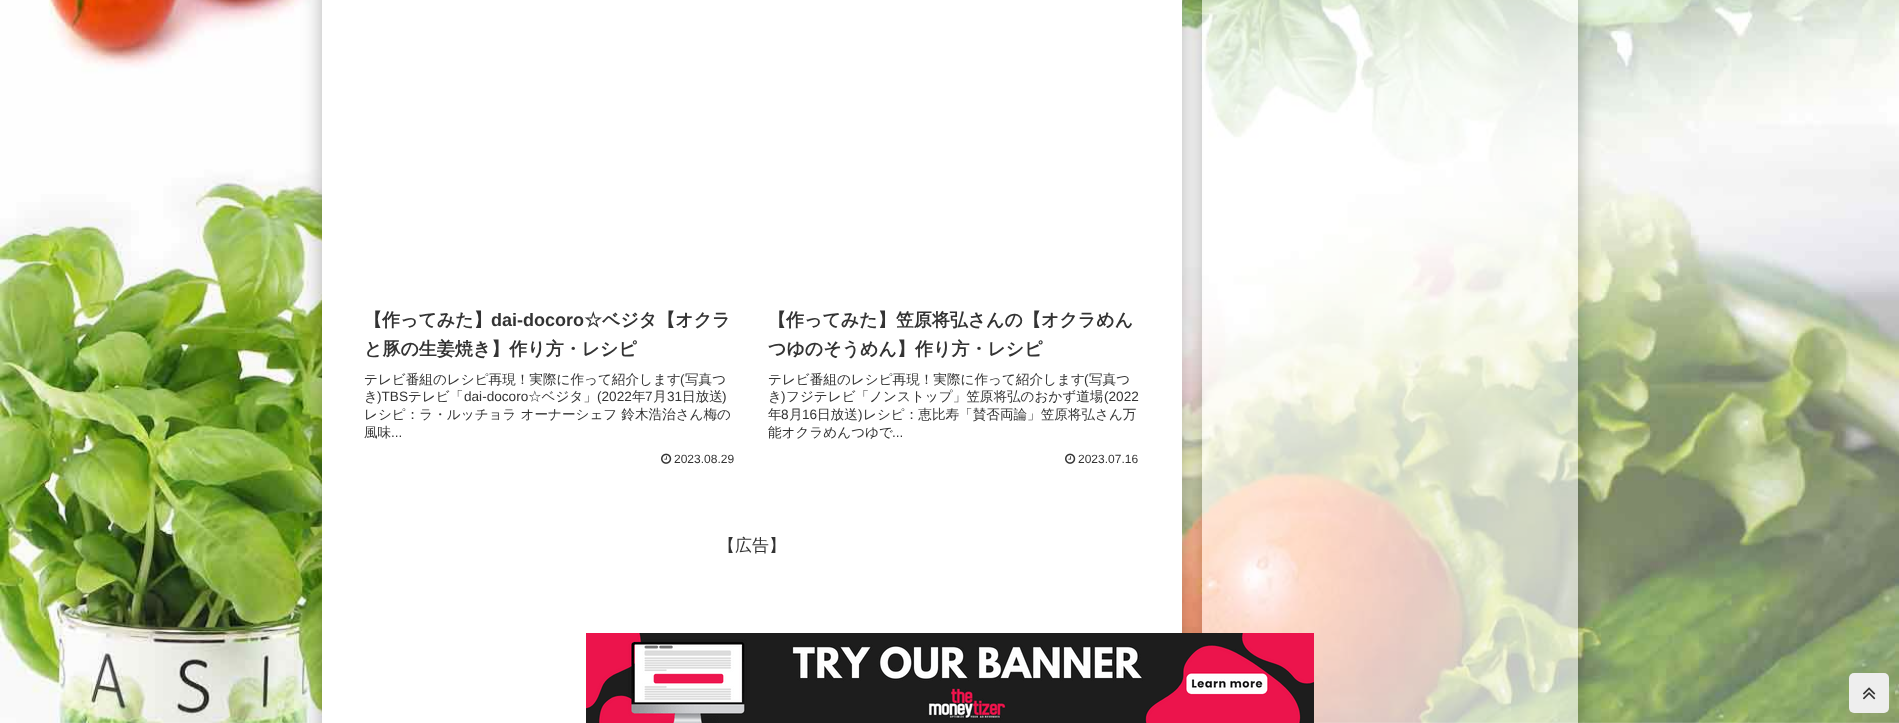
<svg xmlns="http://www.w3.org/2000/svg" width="1899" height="723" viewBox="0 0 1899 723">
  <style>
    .t1 { font: bold 18px WenQuanYi Zen Hei; fill: #333; }
    .t2 { font: bold 18px Liberation Sans; fill: #333; }
    .t3 { font: 500 13.6px WenQuanYi Zen Hei; fill: #333; }
    .t4 { font: 13.6px Liberation Sans; fill: #333; }
    .t5 { font: 12px Liberation Sans; fill: #333; }
    .t6 { font: 500 17px WenQuanYi Zen Hei; fill: #333; }
  </style>
  <defs>
    <clipPath id="clip1"><path d="M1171 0H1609V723H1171ZM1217-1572H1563C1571.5-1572 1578-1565.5 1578-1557V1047C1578 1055.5 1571.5 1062 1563 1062H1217C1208.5 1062 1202 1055.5 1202 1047V-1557C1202-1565.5 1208.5-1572 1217-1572Z" clip-rule="evenodd"/></clipPath>
  </defs>
  <rect width="100%" height="100%" fill="#fff"/>
  <image x="0" y="0" width="1899" height="723" href="images/1.png"/>
  <g clip-path="url(#clip1)">
    <rect x="1202" y="-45" width="376" height="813" rx="15" fill="#0000004d" filter="blur(10px)"/>
  </g>
  <rect x="1202" y="0" width="376" height="723" fill="#ffffff99"/>
  <rect x="322" y="-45" width="860" height="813" rx="15" fill="#0000004d" filter="blur(10px)"/>
  <rect x="322" y="0" width="860" height="723" fill="#fff"/>
  <text x="364" y="326" class="t1">【作ってみた】</text>
  <text x="491" y="326" class="t2">dai-docoro</text>
  <text x="584" y="326" class="t1">☆ベジタ【オクラ</text>
  <text x="364" y="355" class="t1">と豚の生姜焼き】作り方・レシピ</text>
  <text x="364" y="384" class="t3">テレビ番組のレシピ再現！実際に作って紹介します</text>
  <text x="680" y="384" class="t4">(</text>
  <text x="685" y="384" class="t3">写真つ</text>
  <text x="364" y="401" class="t3">き</text>
  <text x="377" y="401" class="t4">)TBS</text>
  <text x="408" y="401" class="t3">テレビ「</text>
  <text x="464" y="401" class="t4">dai-docoro</text>
  <text x="528" y="401" class="t3">☆ベジタ」</text>
  <text x="597" y="401" class="t4">(2022</text>
  <text x="632" y="401" class="t3">年</text>
  <text x="645" y="401" class="t4">7</text>
  <text x="653" y="401" class="t3">月</text>
  <text x="667" y="401" class="t4">31</text>
  <text x="682" y="401" class="t3">日放送</text>
  <text x="722" y="401" class="t4">)</text>
  <text x="364" y="419" class="t3">レシピ：ラ・ルッチョラ オーナーシェフ 鈴木浩治さん梅の</text>
  <text x="364" y="437" class="t3">風味</text>
  <text x="391" y="437" class="t4">...</text>
  <image x="661" y="453" width="11" height="11" href="images/2.png"/>
  <text x="674" y="463" class="t5">2023.08.29</text>
  <text x="768" y="326" class="t1">【作ってみた】笠原将弘さんの【オクラめん</text>
  <text x="768" y="355" class="t1">つゆのそうめん】作り方・レシピ</text>
  <text x="768" y="384" class="t3">テレビ番組のレシピ再現！実際に作って紹介します</text>
  <text x="1084" y="384" class="t4">(</text>
  <text x="1089" y="384" class="t3">写真つ</text>
  <text x="768" y="401" class="t3">き</text>
  <text x="781" y="401" class="t4">)</text>
  <text x="786" y="401" class="t3">フジテレビ「ノンストップ」笠原将弘のおかず道場</text>
  <text x="1104" y="401" class="t4">(2022</text>
  <text x="768" y="419" class="t3">年</text>
  <text x="781" y="419" class="t4">8</text>
  <text x="789" y="419" class="t3">月</text>
  <text x="802" y="419" class="t4">16</text>
  <text x="817" y="419" class="t3">日放送</text>
  <text x="858" y="419" class="t4">)</text>
  <text x="863" y="419" class="t3">レシピ：恵比寿「賛否両論」笠原将弘さん万</text>
  <text x="768" y="437" class="t3">能オクラめんつゆで</text>
  <text x="892" y="437" class="t4">...</text>
  <image x="1065" y="453" width="11" height="11" href="images/2.png"/>
  <text x="1078" y="463" class="t5">2023.07.16</text>
  <text x="718" y="551" class="t6">【広告】</text>
  <image x="586" y="633" width="135" height="90" href="images/3.png"/>
  <rect x="1849" y="673" width="40" height="40" rx="5" fill="#eee"/>
  <image x="1863" y="687" width="13" height="13" href="images/4.png"/>
  <image x="721" y="633" width="593" height="90" href="images/5.png"/>
</svg>
